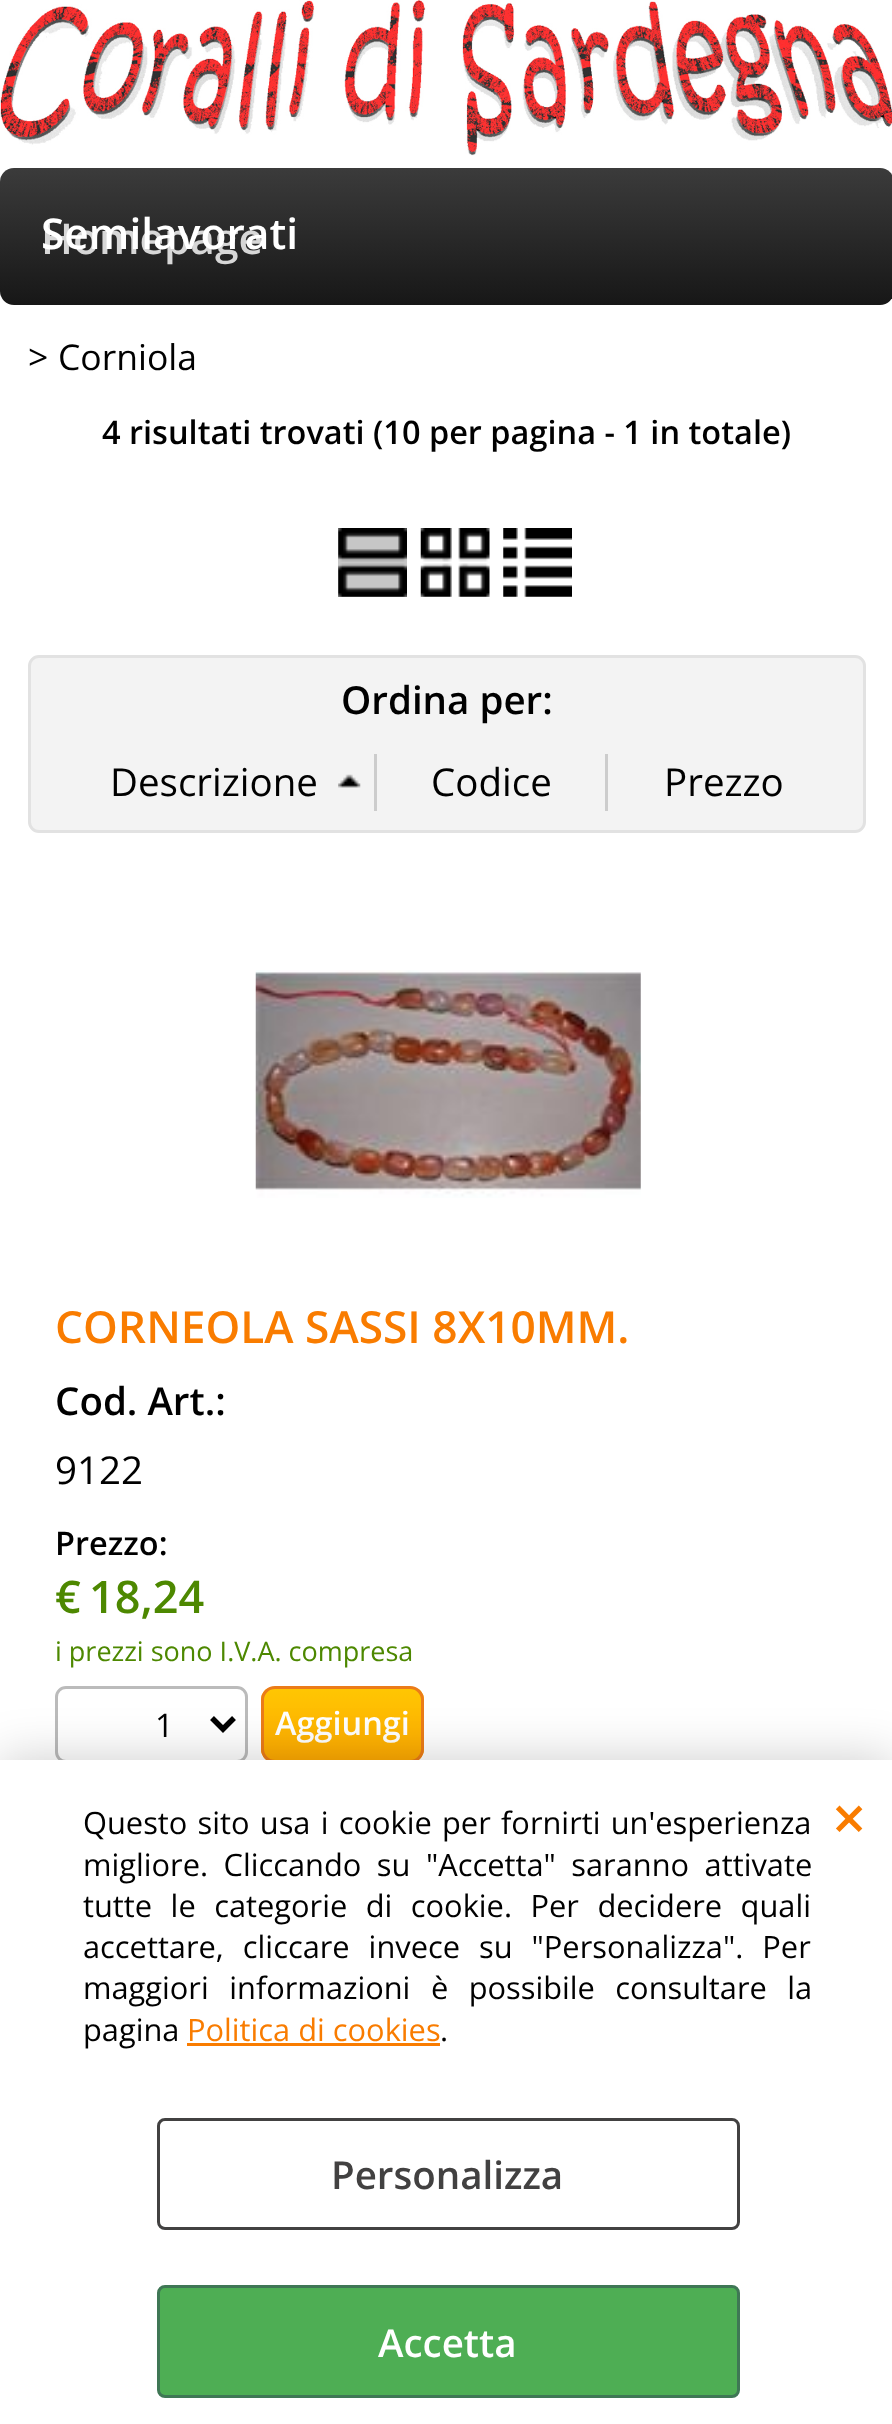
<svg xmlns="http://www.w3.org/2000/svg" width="892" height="2424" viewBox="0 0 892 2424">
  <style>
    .t1 { font: 600 42.5px Open Sans; fill: #d7d7d7; }
    .t2 { font: 600 42.5px Open Sans; fill: #fff; }
    .t3 { font: 35.5px Open Sans; fill: #000; }
    .t4 { font: 600 32.5px Open Sans; fill: #000; }
    .t5 { font: 600 38.5px Open Sans; fill: #000; }
    .t6 { font: 38.5px Open Sans; fill: #000; }
    .t7 { font: 600 44.25px Open Sans; fill: #f97c00; }
    .t8 { font: 600 45px Open Sans; fill: #4d8800; }
    .t9 { font: 27px Open Sans; fill: #4d8800; }
    .t10 { font: 32.5px Open Sans; fill: #000; }
    .t11 { font: 600 32.5px Open Sans; fill: #fff; }
    .t12 { font: 30.8px Open Sans; fill: #000; }
    .t13 { font: 30.8px Open Sans; fill: #f97c00; }
    .t14 { font: 600 60px Open Sans; fill: #f97c00; }
    .t15 { font: 600 38.5px Open Sans; fill: #424141; }
    .t16 { font: 600 38.5px Open Sans; fill: #fff; }
  </style>
  <defs>
    <linearGradient id="g1" gradientUnits="userSpaceOnUse" x1="447" y1="168" x2="447" y2="305"><stop offset="0" stop-color="#3b3b3b"/><stop offset="1" stop-color="#171717"/></linearGradient>
    <clipPath id="clip1"><rect x="261" y="1686" width="163" height="77" rx="14"/></clipPath>
    <linearGradient id="g2" gradientUnits="userSpaceOnUse" x1="342" y1="1689" x2="342" y2="1760"><stop offset="0" stop-color="#ffc602"/><stop offset="1" stop-color="#ffaa02"/></linearGradient>
  </defs>
  <rect width="100%" height="100%" fill="#fff"/>
  <image x="0" y="0" width="892" height="156" href="images/1.png"/>
  <rect x="0" y="168" width="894" height="137" rx="14" fill="url(#g1)"/>
  <text x="41" y="254" class="t1">Homepage</text>
  <text x="41" y="249" class="t2">Semilavorati</text>
  <text x="28" y="370" class="t3">&gt;</text>
  <text x="58" y="370" class="t3">Corniola</text>
  <text x="102" y="444" class="t4">4 risultati trovati (10 per pagina - 1 in totale)</text>
  <rect x="338" y="528" width="69" height="69" fill="#c6c6c6"/>
  <image x="338" y="528" width="69" height="69" href="images/2.png"/>
  <image x="420" y="528" width="70" height="69" href="images/3.png"/>
  <image x="503" y="528" width="69" height="69" href="images/4.png"/>
  <rect x="29.5" y="656.5" width="835" height="175" rx="9.5" fill="#f3f3f3" stroke="#e2e2e2" stroke-width="3"/>
  <text x="341" y="714" class="t5">Ordina per:</text>
  <image x="338" y="774" width="23" height="14" href="images/5.png"/>
  <rect x="374" y="754" width="3" height="57" fill="#ccc"/>
  <text x="110" y="796" class="t6">Descrizione</text>
  <rect x="605" y="754" width="3" height="57" fill="#ccc"/>
  <text x="431" y="796" class="t6">Codice</text>
  <text x="664" y="796" class="t6">Prezzo</text>
  <image x="255" y="970" width="386" height="228" href="images/6.png"/>
  <text x="55" y="1343" class="t7">CORNEOLA SASSI 8X10MM.</text>
  <text x="55" y="1415" class="t5">Cod. Art.:</text>
  <text x="55" y="1484" class="t6">9122</text>
  <text x="55" y="1555" class="t4">Prezzo:</text>
  <text x="55" y="1613" class="t8">€</text>
  <text x="89" y="1613" class="t8">18,24</text>
  <text x="55" y="1661" class="t9">i prezzi sono I.V.A. compresa</text>
  <rect x="56.5" y="1687.5" width="190" height="74" rx="9.5" fill="none" stroke="#bbb" stroke-width="3"/>
  <path d="M212 1718L223 1729L234 1718" fill="none" stroke="#000" stroke-width="5.5"/>
  <text x="155" y="1737" class="t10">1</text>
  <g clip-path="url(#clip1)">
    <rect x="261" y="1689" width="163" height="71" fill="url(#g2)"/>
  </g>
  <rect x="262.5" y="1687.5" width="160" height="74" rx="12.5" fill="none" stroke="#eb7c19" stroke-width="3"/>
  <text x="275" y="1735" class="t11">Aggiungi</text>
  <rect x="0" y="1760" width="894" height="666" fill="#00000033" filter="blur(25px)"/>
  <rect x="0" y="1760" width="892" height="664" fill="#fff"/>
  <text x="83" y="1834" word-spacing="2.25" class="t12">Questo sito usa i cookie per fornirti un'esperienza</text>
  <text x="83" y="1876" word-spacing="7.5" class="t12">migliore. Cliccando su "Accetta" saranno attivate</text>
  <text x="83" y="1917" word-spacing="10.5" class="t12">tutte le categorie di cookie. Per decidere quali</text>
  <text x="83" y="1958" word-spacing="11" class="t12">accettare, cliccare invece su "Personalizza". Per</text>
  <text x="83" y="1999" word-spacing="12.5" class="t12">maggiori informazioni è possibile consultare la</text>
  <text x="83" y="2041" class="t12">pagina</text>
  <text x="187" y="2041" class="t13">Politica di cookies</text>
  <rect x="187" y="2043" width="253" height="3" fill="#f97c00"/>
  <text x="440" y="2041" class="t12">.</text>
  <text x="832" y="1840" class="t14">×</text>
  <rect x="158.5" y="2119.5" width="580" height="109" rx="6.5" fill="none" stroke="#424141" stroke-width="3"/>
  <text x="331" y="2189" class="t15">Personalizza</text>
  <rect x="158.5" y="2286.5" width="580" height="110" rx="6.5" fill="#4eae54" stroke="#3f7755" stroke-width="3"/>
  <text x="378" y="2357" class="t16">Accetta</text>
</svg>
